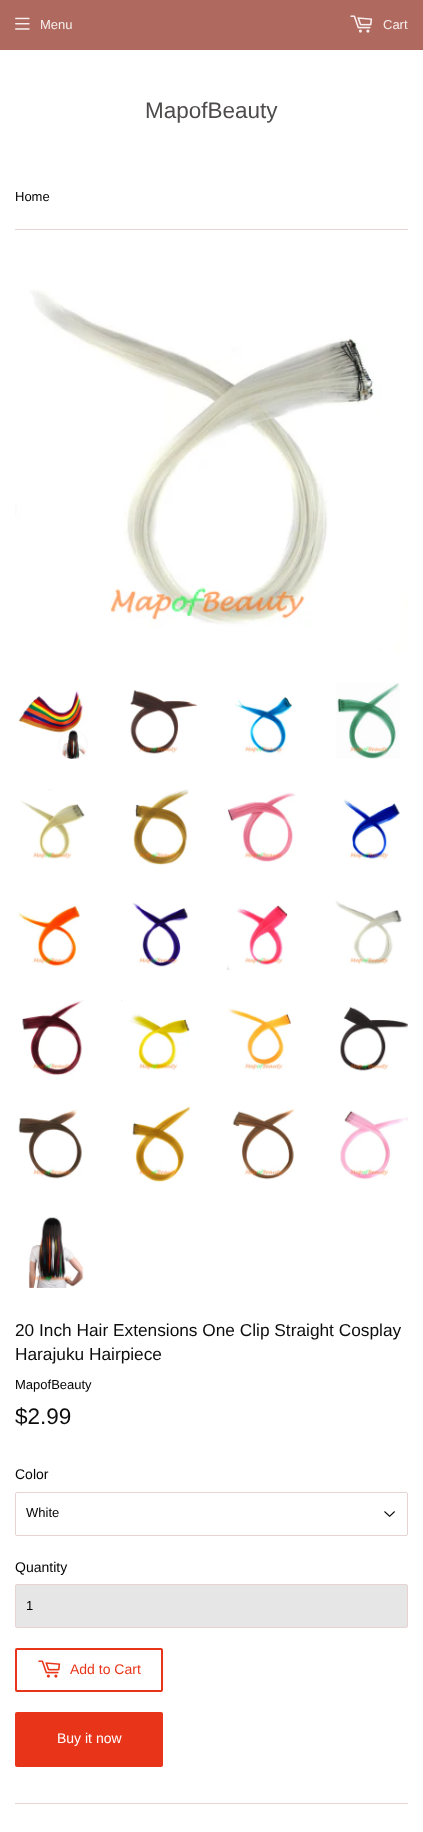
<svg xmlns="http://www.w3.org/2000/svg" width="423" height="1832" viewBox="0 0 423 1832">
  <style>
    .t1 { font: 13px Liberation Sans; fill: #f7eeee; }
    .t2 { font: 22.5px Liberation Sans; fill: #4e4b4b; }
    .t3 { font: 13px Liberation Sans; fill: #020202; }
    .t4 { font: 17.3px Liberation Sans; fill: #0d0d0d; }
    .t5 { font: 22.5px Liberation Sans; fill: #0d0d0d; }
    .t6 { font: 14px Liberation Sans; fill: #020202; }
    .t7 { font: 14px Liberation Sans; fill: #e83519; }
    .t8 { font: 14px Liberation Sans; fill: #fff; }
  </style>
  <rect width="100%" height="100%" fill="#fff"/>
  <rect x="0" y="0" width="423" height="50" fill="#b0695e"/>
  <image x="15" y="17" width="15" height="13" href="images/1.png"/>
  <text x="40" y="29" class="t1">Menu</text>
  <image x="350" y="15" width="23" height="18" href="images/2.png"/>
  <text x="383" y="29" class="t1">Cart</text>
  <text x="145" y="118" class="t2">MapofBeauty</text>
  <rect x="15" y="229" width="393" height="1" fill="#e6d3d3"/>
  <text x="15" y="201" class="t3">Home</text>
  <image x="15" y="289" width="393" height="364" href="images/3.png"/>
  <image x="18" y="691" width="70" height="68" href="images/4.png"/>
  <image x="130" y="689" width="67" height="65" href="images/5.png"/>
  <image x="234" y="697" width="58" height="58" href="images/6.png"/>
  <image x="336" y="683" width="64" height="76" href="images/7.png"/>
  <image x="20" y="789" width="65" height="70" href="images/8.png"/>
  <image x="133" y="789" width="56" height="76" href="images/9.png"/>
  <image x="227" y="792" width="69" height="70" href="images/10.png"/>
  <image x="343" y="799" width="57" height="62" href="images/11.png"/>
  <image x="18" y="905" width="63" height="62" href="images/12.png"/>
  <image x="132" y="902" width="56" height="65" href="images/13.png"/>
  <image x="227" y="905" width="61" height="65" href="images/14.png"/>
  <image x="335" y="900" width="67" height="65" href="images/15.png"/>
  <image x="22" y="1000" width="62" height="76" href="images/16.png"/>
  <image x="121" y="1000" width="69" height="70" href="images/17.png"/>
  <image x="227" y="1008" width="65" height="64" href="images/18.png"/>
  <image x="340" y="1006" width="68" height="66" href="images/19.png"/>
  <image x="18" y="1109" width="64" height="70" href="images/20.png"/>
  <image x="132" y="1106" width="59" height="76" href="images/21.png"/>
  <image x="232" y="1108" width="63" height="72" href="images/22.png"/>
  <image x="340" y="1110" width="68" height="70" href="images/23.png"/>
  <image x="28" y="1217" width="56" height="71" href="images/24.png"/>
  <text x="15" y="1336" class="t4">20 Inch Hair Extensions One Clip Straight Cosplay</text>
  <text x="15" y="1360" class="t4">Harajuku Hairpiece</text>
  <text x="15" y="1389" class="t3">MapofBeauty</text>
  <text x="15" y="1424" class="t5">$2.99</text>
  <text x="15" y="1479" class="t6">Color</text>
  <image x="384" y="1511" width="11" height="6" href="images/25.png"/>
  <rect x="15.5" y="1492.5" width="392" height="43" rx="1.5" fill="none" stroke="#e6d3d3"/>
  <text x="26" y="1517" class="t3">White</text>
  <text x="15" y="1572" class="t6">Quantity</text>
  <rect x="15.5" y="1584.5" width="392" height="43" rx="1.5" fill="#e6e6e6" stroke="#e6d3d3"/>
  <text x="26" y="1610" class="t3">1</text>
  <rect x="16" y="1649" width="146" height="42" rx="1" fill="none" stroke="#e83519" stroke-width="2"/>
  <image x="38" y="1660" width="23" height="18" href="images/26.png"/>
  <text x="70" y="1674" class="t7">Add to Cart</text>
  <rect x="15" y="1712" width="148" height="55" rx="2" fill="#e83519"/>
  <text x="57" y="1743" class="t8">Buy it now</text>
  <rect x="15" y="1803" width="393" height="1" fill="#e6d3d3"/>
</svg>
